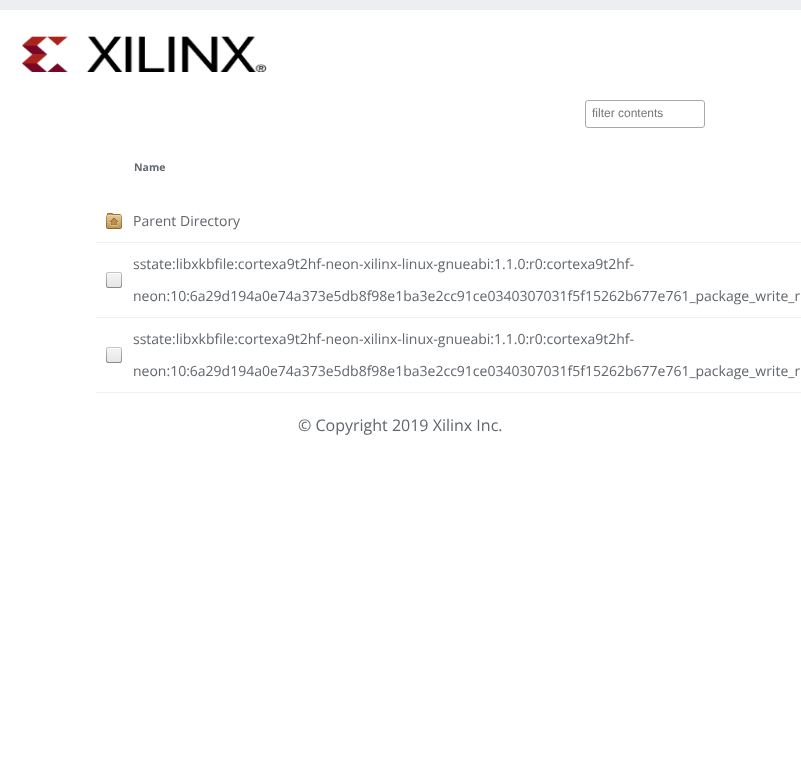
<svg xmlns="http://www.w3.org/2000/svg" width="801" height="778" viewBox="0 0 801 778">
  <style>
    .t1 { font: 12px Liberation Sans; fill: #757575; }
    .t2 { font: bold 10.5px Open Sans; fill: #61666c; }
    .t3 { font: 14px Open Sans; fill: #61666c; }
    .t4 { font: 16px Open Sans; fill: #61666c; }
  </style>
  <rect width="100%" height="100%" fill="#fff"/>
  <rect x="0" y="0" width="801" height="10" fill="#eceef1"/>
  <image x="22" y="36" width="245" height="36" href="images/1.png"/>
  <rect x="585.5" y="100.5" width="119" height="27" rx="2.5" fill="none" stroke="#aaa"/>
  <text x="592" y="117" class="t1">filter contents</text>
  <text x="134" y="171" class="t2">Name</text>
  <image x="106" y="213" width="16" height="16" href="images/2.png"/>
  <rect x="96" y="242" width="705" height="1" fill="#edf1f5"/>
  <text x="133" y="226" class="t3">Parent Directory</text>
  <image x="106" y="272" width="16" height="16" href="images/3.png"/>
  <rect x="96" y="317" width="705" height="1" fill="#edf1f5"/>
  <text x="133" y="269" class="t3">sstate:libxkbfile:cortexa9t2hf-neon-xilinx-linux-gnueabi:1.1.0:r0:cortexa9t2hf-</text>
  <text x="133" y="301" class="t3">neon:10:6a29d194a0e74a373e5db8f98e1ba3e2cc91ce0340307031f5f15262b677e761_package_write_r</text>
  <image x="106" y="347" width="16" height="16" href="images/3.png"/>
  <rect x="96" y="392" width="705" height="1" fill="#edf1f5"/>
  <text x="133" y="344" class="t3">sstate:libxkbfile:cortexa9t2hf-neon-xilinx-linux-gnueabi:1.1.0:r0:cortexa9t2hf-</text>
  <text x="133" y="376" class="t3">neon:10:6a29d194a0e74a373e5db8f98e1ba3e2cc91ce0340307031f5f15262b677e761_package_write_r</text>
  <text x="298" y="431" class="t4">© Copyright 2019 Xilinx Inc.</text>
</svg>
